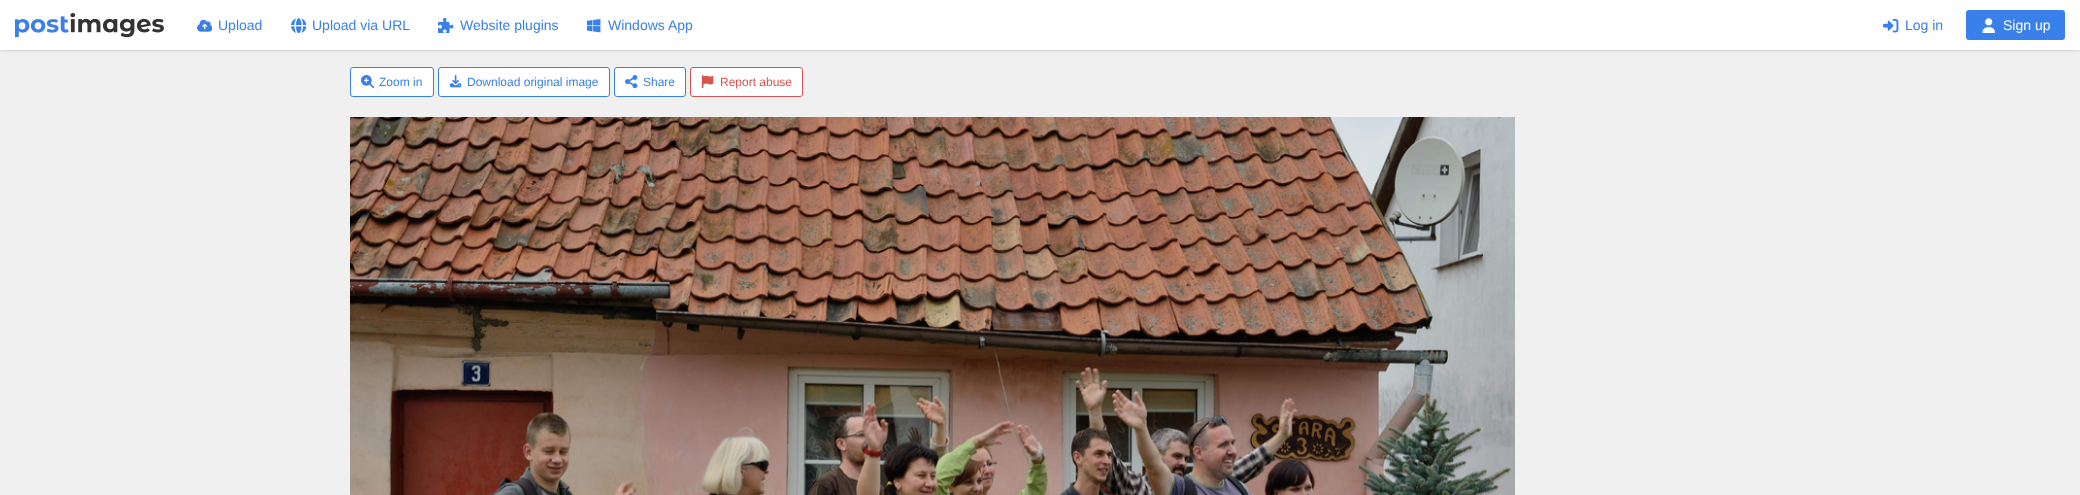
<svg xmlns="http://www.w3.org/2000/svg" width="2080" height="495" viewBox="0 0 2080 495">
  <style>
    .t1 { font: 14px Liberation Sans; fill: #3a80ea; }
    .t2 { font: 14px Liberation Sans; fill: #fff; }
    .t3 { font: 12px Liberation Sans; fill: #3a80ea; }
    .t4 { font: 12px Liberation Sans; fill: #d9534f; }
  </style>
  <rect width="100%" height="100%" fill="#f0f0f0"/>
  <rect x="0" y="0" width="2080" height="50" fill="#00000040" filter="blur(1.5px)"/>
  <rect x="0" y="0" width="2080" height="50" fill="#fff"/>
  <image x="15" y="13" width="149" height="25" href="images/1.png"/>
  <image x="197" y="19" width="15" height="13" href="images/2.png"/>
  <text x="218" y="30" class="t1">Upload</text>
  <image x="291" y="18" width="15" height="15" href="images/3.png"/>
  <text x="312" y="30" class="t1">Upload via URL</text>
  <image x="438" y="18" width="16" height="15" href="images/4.png"/>
  <text x="460" y="30" class="t1">Website plugins</text>
  <image x="586" y="19" width="15" height="14" href="images/5.png"/>
  <text x="608" y="30" class="t1">Windows App</text>
  <image x="1883" y="18" width="16" height="15" href="images/6.png"/>
  <text x="1905" y="30" class="t1">Log in</text>
  <rect x="1966" y="10" width="99" height="30" rx="3" fill="#3a80ea"/>
  <image x="1982" y="18" width="13" height="15" href="images/7.png"/>
  <text x="2003" y="30" class="t2">Sign up</text>
  <rect x="350.5" y="67.5" width="83" height="29" rx="2.5" fill="#fff" stroke="#3a80ea"/>
  <image x="361" y="75" width="13" height="14" href="images/8.png"/>
  <text x="379" y="86" class="t3">Zoom in</text>
  <rect x="438.5" y="67.5" width="171" height="29" rx="2.5" fill="#fff" stroke="#3a80ea"/>
  <image x="449" y="75" width="13" height="13" href="images/9.png"/>
  <text x="467" y="86" class="t3">Download original image</text>
  <rect x="614.5" y="67.5" width="71" height="29" rx="2.5" fill="#fff" stroke="#3a80ea"/>
  <image x="625" y="75" width="13" height="14" href="images/10.png"/>
  <text x="643" y="86" class="t3">Share</text>
  <rect x="690.5" y="67.5" width="112" height="29" rx="2.5" fill="#fff" stroke="#d9534f"/>
  <image x="701" y="75" width="13" height="14" href="images/11.png"/>
  <text x="720" y="86" class="t4">Report abuse</text>
  <image x="350" y="117" width="1165" height="378" href="images/12.png"/>
</svg>
